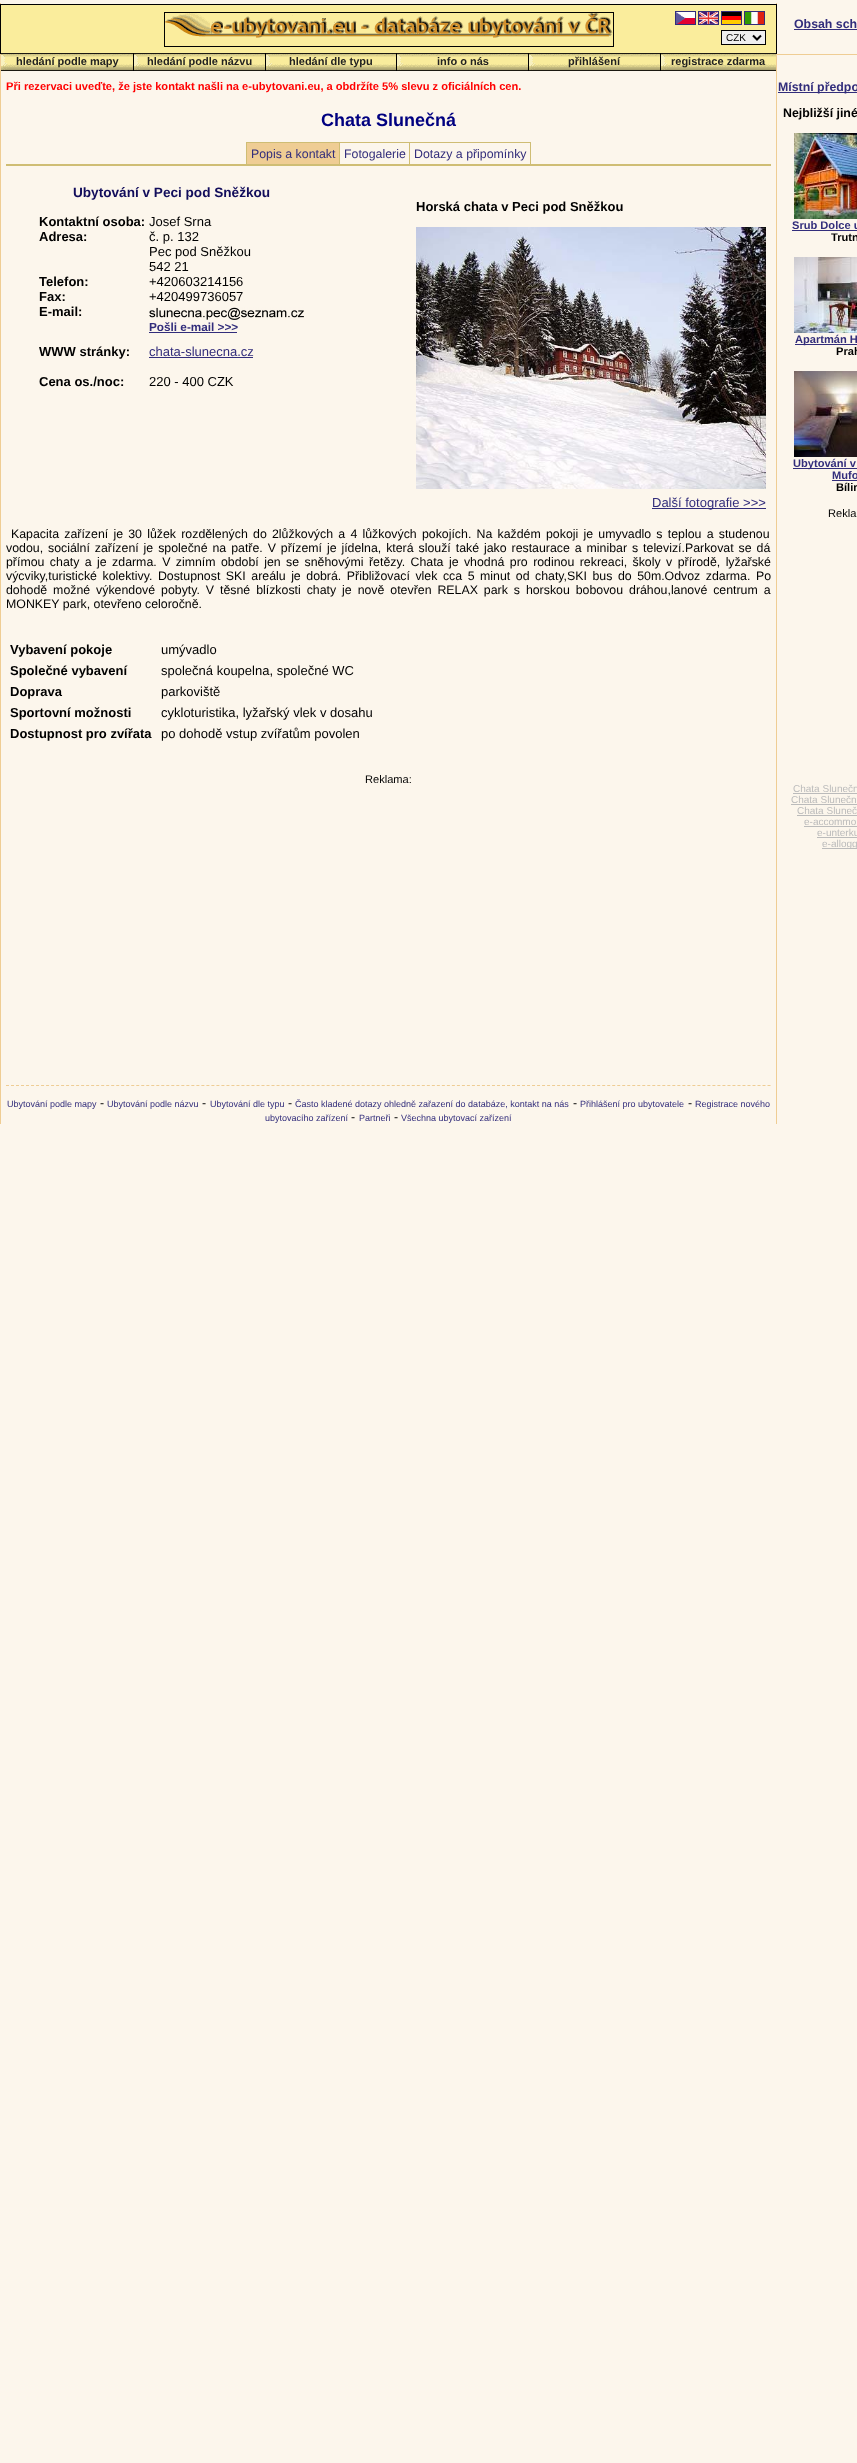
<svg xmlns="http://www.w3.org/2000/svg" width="857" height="2463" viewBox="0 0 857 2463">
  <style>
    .t1 { font: 10px Liberation Sans; fill: #000; }
    .t2 { font: bold 12.35px Liberation Sans; fill: #322d7b; }
    .t3 { font: bold 12.35px Liberation Sans; fill: #000; }
    .t4 { font: bold 11.1px Liberation Sans; fill: #322d7b; }
    .t5 { font: bold 11.1px Liberation Sans; fill: #000; }
    .t6 { font: 11.1px Liberation Sans; fill: #000; }
    .t7 { font: 10px Liberation Sans; fill: #bbb; }
    .t8 { font: bold 11px Liberation Sans; fill: #222; }
    .t9 { font: bold 11.1px Liberation Sans; fill: #f00; }
    .t10 { font: bold 18px Liberation Sans; fill: #000080; }
    .t11 { font: 12.35px Liberation Sans; fill: #322d7b; }
    .t12 { font: bold 13.6px Liberation Sans; fill: #120d5b; }
    .t13 { font: bold 13px Liberation Sans; fill: #000; }
    .t14 { font: 13px Liberation Sans; fill: #000; }
    .t15 { font: bold 11.75px Liberation Sans; fill: #322d7b; }
    .t16 { font: 13px Liberation Sans; fill: #322d7b; }
    .t17 { font: 12.35px Liberation Sans; fill: #000; }
    .t18 { font: 9px Liberation Sans; fill: #322d7b; }
  </style>
  <rect width="100%" height="100%" fill="#fcf6ec"/>
  <rect x="1" y="5" width="775" height="48" fill="#faed9c"/>
  <rect x="776" y="3" width="1" height="1121" fill="#efcd94"/>
  <rect x="0" y="3" width="1" height="1121" fill="#efcd94"/>
  <rect x="0" y="4" width="777" height="1" fill="#000"/>
  <rect x="776" y="4" width="1" height="50" fill="#000"/>
  <rect x="0" y="4" width="1" height="50" fill="#000"/>
  <image x="164" y="12" width="450" height="35" href="images/1.png"/>
  <rect x="675.5" y="11.5" width="20" height="13" fill="none" stroke="#322d7b"/>
  <image x="676" y="12" width="19" height="12" href="images/2.png"/>
  <rect x="698.5" y="11.5" width="20" height="13" fill="none" stroke="#322d7b"/>
  <image x="699" y="12" width="19" height="12" href="images/3.png"/>
  <rect x="721.5" y="11.5" width="20" height="13" fill="none" stroke="#322d7b"/>
  <image x="722" y="12" width="19" height="12" href="images/4.png"/>
  <rect x="744.5" y="11.5" width="20" height="13" fill="none" stroke="#322d7b"/>
  <image x="745" y="12" width="19" height="12" href="images/5.png"/>
  <rect x="721.5" y="30.5" width="44" height="14" fill="#efefef" stroke="#000"/>
  <path d="M753 35.5L757 39.5L761 35.5" fill="none" stroke="#000" stroke-width="2"/>
  <text x="726" y="41" class="t1">CZK</text>
  <rect x="776" y="54" width="81" height="1" fill="#efcd94"/>
  <text x="794" y="28" class="t2">Obsah sch</text>
  <rect x="794" y="29" width="63" height="1" fill="#322d7b"/>
  <rect x="778" y="92" width="79" height="1" fill="#322d7b"/>
  <text x="778" y="91" class="t2">Místní předpo</text>
  <text x="783" y="117" class="t3">Nejbližší jiné</text>
  <image x="794" y="133" width="63" height="86" href="images/6.png"/>
  <text x="792" y="229" class="t4">Srub Dolce u</text>
  <rect x="792" y="230" width="65" height="1" fill="#322d7b"/>
  <text x="831" y="241" class="t5">Trutn</text>
  <image x="794" y="257" width="63" height="76" href="images/7.png"/>
  <rect x="795" y="344" width="62" height="1" fill="#322d7b"/>
  <text x="795" y="343" class="t4">Apartmán H</text>
  <text x="836" y="355" class="t5">Prah</text>
  <image x="794" y="371" width="63" height="86" href="images/8.png"/>
  <rect x="793" y="468" width="64" height="1" fill="#322d7b"/>
  <text x="793" y="467" class="t4">Ubytování v</text>
  <text x="832" y="479" class="t4">Mufo</text>
  <rect x="832" y="480" width="25" height="1" fill="#322d7b"/>
  <text x="836" y="491" class="t5">Bílin</text>
  <text x="828" y="517" class="t6">Rekla</text>
  <text x="793" y="792" class="t7">Chata Slunečn</text>
  <rect x="793" y="793" width="64" height="1" fill="#bbb"/>
  <text x="791" y="803" class="t7">Chata Slunečn</text>
  <rect x="791" y="804" width="66" height="1" fill="#bbb"/>
  <text x="797" y="814" class="t7">Chata Sluneč</text>
  <rect x="797" y="815" width="60" height="1" fill="#bbb"/>
  <text x="804" y="825" class="t7">e-accommo</text>
  <rect x="804" y="826" width="53" height="1" fill="#bbb"/>
  <text x="817" y="836" class="t7">e-unterku</text>
  <rect x="817" y="837" width="40" height="1" fill="#bbb"/>
  <rect x="822" y="848" width="35" height="1" fill="#bbb"/>
  <text x="822" y="847" class="t7">e-allogg</text>
  <image x="1" y="53" width="132" height="18" href="images/9.png"/>
  <text x="16" y="65" class="t8">hledání podle mapy</text>
  <rect x="133" y="53" width="1" height="18" fill="#000"/>
  <image x="134" y="53" width="131" height="18" href="images/10.png"/>
  <text x="147" y="65" class="t8">hledání podle názvu</text>
  <rect x="265" y="53" width="1" height="18" fill="#000"/>
  <image x="266" y="53" width="130" height="18" href="images/11.png"/>
  <text x="289" y="65" class="t8">hledání dle typu</text>
  <rect x="396" y="53" width="1" height="18" fill="#000"/>
  <image x="397" y="53" width="131" height="18" href="images/12.png"/>
  <text x="437" y="65" class="t8">info o nás</text>
  <rect x="528" y="53" width="1" height="18" fill="#000"/>
  <image x="529" y="53" width="131" height="18" href="images/10.png"/>
  <text x="568" y="65" class="t8">přihlášení</text>
  <rect x="660" y="53" width="1" height="18" fill="#000"/>
  <image x="661" y="53" width="115" height="18" href="images/13.png"/>
  <text x="671" y="65" class="t8">registrace zdarma</text>
  <text x="6" y="90" class="t9">Při rezervaci uveďte, že jste kontakt našli na e-ubytovani.eu, a obdržíte 5% slevu z oficiálních cen.</text>
  <text x="321" y="126" class="t10">Chata Slunečná</text>
  <rect x="6" y="164" width="765" height="2" fill="#cfbd74"/>
  <rect x="246.5" y="142.5" width="93" height="22" fill="#efcd94" stroke="#cfbd74"/>
  <text x="251" y="158" class="t11">Popis a kontakt</text>
  <text x="344" y="158" class="t11">Fotogalerie</text>
  <text x="414" y="158" class="t11">Dotazy a připomínky</text>
  <rect x="340" y="142" width="191" height="1" fill="#cfbd74"/>
  <rect x="409" y="142" width="1" height="23" fill="#cfbd74"/>
  <rect x="530" y="142" width="1" height="23" fill="#cfbd74"/>
  <text x="73" y="197" class="t12">Ubytování v Peci pod Sněžkou</text>
  <text x="39" y="226" class="t13">Kontaktní osoba:</text>
  <text x="149" y="226" class="t14">Josef Srna</text>
  <text x="39" y="241" class="t13">Adresa:</text>
  <text x="149" y="241" class="t14">č. p. 132</text>
  <text x="149" y="256" class="t14">Pec pod Sněžkou</text>
  <text x="149" y="271" class="t14">542 21</text>
  <text x="39" y="286" class="t13">Telefon:</text>
  <text x="149" y="286" class="t14">+420603214156</text>
  <text x="39" y="301" class="t13">Fax:</text>
  <text x="149" y="301" class="t14">+420499736057</text>
  <text x="39" y="316" class="t13">E-mail:</text>
  <image x="149" y="307" width="155" height="13" href="images/14.png"/>
  <text x="149" y="331" class="t15">Pošli e-mail &gt;&gt;&gt;</text>
  <rect x="149" y="332" width="88" height="1" fill="#322d7b"/>
  <text x="39" y="356" class="t13">WWW stránky:</text>
  <text x="149" y="356" class="t16">chata-slunecna.cz</text>
  <rect x="149" y="357" width="104" height="1" fill="#322d7b"/>
  <text x="39" y="386" class="t13">Cena os./noc:</text>
  <text x="149" y="386" class="t14">220 - 400 CZK</text>
  <text x="416" y="211" class="t13">Horská chata v Peci pod Sněžkou</text>
  <image x="416" y="227" width="350" height="262" href="images/15.png"/>
  <rect x="652" y="508" width="114" height="1" fill="#322d7b"/>
  <text x="652" y="507" class="t16">Další fotografie &gt;&gt;&gt;</text>
  <text x="11" y="538" word-spacing="1.8" class="t17">Kapacita zařízení je 30 lůžek rozdělených do 2lůžkových a 4 lůžkových pokojích. Na každém pokoji je umyvadlo s teplou a studenou</text>
  <text x="6" y="552" word-spacing="1.5" class="t17">vodou, sociální zařízení je společné na patře. V přízemí je jídelna, která slouží také jako restaurace a minibar s televizí.Parkovat se dá</text>
  <text x="6" y="566" word-spacing="2" class="t17">přímou chaty a je zdarma. V zimním období jen se sněhovými řetězy. Chata je vhodná pro rodinou rekreaci, školy v přírodě, lyžařské</text>
  <text x="6" y="580" word-spacing="2.1" class="t17">výcviky,turistické kolektivy. Dostupnost SKI areálu je dobrá. Přibližovací vlek cca 5 minut od chaty,SKI bus do 50m.Odvoz zdarma. Po</text>
  <text x="6" y="594" word-spacing="2.5" class="t17">dohodě možné výkendové pobyty. V těsné blízkosti chaty je nově otevřen RELAX park s horskou bobovou dráhou,lanové centrum a</text>
  <text x="6" y="608" class="t17">MONKEY park, otevřeno celoročně.</text>
  <text x="10" y="654" class="t13">Vybavení pokoje</text>
  <text x="161" y="654" class="t14">umývadlo</text>
  <text x="10" y="675" class="t13">Společné vybavení</text>
  <text x="161" y="675" class="t14">společná koupelna, společné WC</text>
  <text x="10" y="696" class="t13">Doprava</text>
  <text x="161" y="696" class="t14">parkoviště</text>
  <text x="10" y="717" class="t13">Sportovní možnosti</text>
  <text x="161" y="717" class="t14">cykloturistika, lyžařský vlek v dosahu</text>
  <text x="10" y="738" class="t13">Dostupnost pro zvířata</text>
  <text x="161" y="738" class="t14">po dohodě vstup zvířatům povolen</text>
  <text x="365" y="783" class="t6">Reklama:</text>
  <path d="M6 1085.5H771" fill="none" stroke="#efcd94" stroke-dasharray="3 2.01"/>
  <text x="7" y="1107" class="t18">Ubytování podle mapy</text>
  <text x="100" y="1107" class="t17">-</text>
  <text x="107" y="1107" class="t18">Ubytování podle názvu</text>
  <text x="202" y="1107" class="t17">-</text>
  <text x="210" y="1107" class="t18">Ubytování dle typu</text>
  <text x="288" y="1107" class="t17">-</text>
  <text x="295" y="1107" class="t18">Často kladené dotazy ohledně zařazení do databáze, kontakt na nás</text>
  <text x="573" y="1107" class="t17">-</text>
  <text x="580" y="1107" class="t18">Přihlášení pro ubytovatele</text>
  <text x="688" y="1107" class="t17">-</text>
  <text x="695" y="1107" class="t18">Registrace nového</text>
  <text x="265" y="1121" class="t18">ubytovacího zařízení</text>
  <text x="351" y="1121" class="t17">-</text>
  <text x="359" y="1121" class="t18">Partneři</text>
  <text x="394" y="1121" class="t17">-</text>
  <text x="401" y="1121" class="t18">Všechna ubytovací zařízení</text>
</svg>
